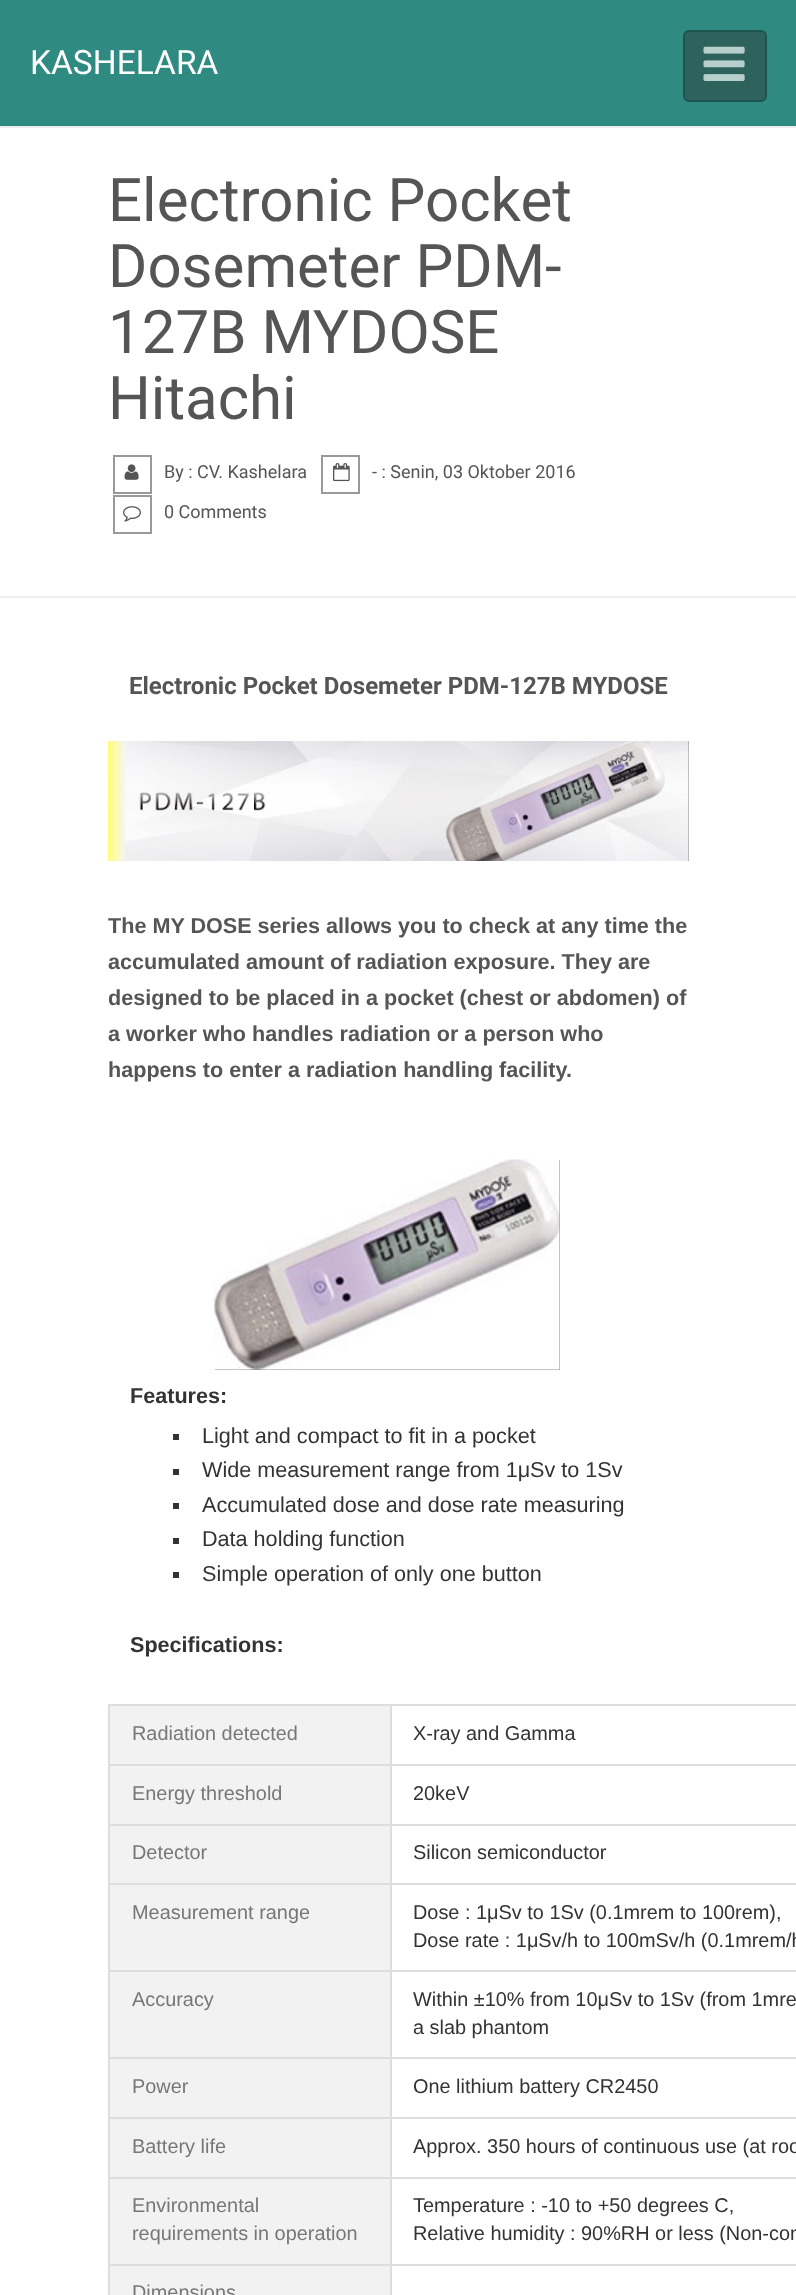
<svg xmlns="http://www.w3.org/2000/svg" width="796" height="2295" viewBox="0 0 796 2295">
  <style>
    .t1 { font: 33.5px Roboto; fill: #fff; }
    .t2 { font: 60px Roboto; fill: #555; }
    .t3 { font: 18px Roboto; fill: #555; }
    .t4 { font: bold 24px Roboto; fill: #555; }
    .t5 { font: bold 21.6px Liberation Sans; fill: #555; }
    .t6 { font: bold 21.6px Liberation Sans; fill: #333; }
    .t7 { font: 21.6px Liberation Sans; fill: #333; }
    .t8 { font: 19.9px Liberation Sans; fill: #777; }
    .t9 { font: 19.9px Liberation Sans; fill: #333; }
  </style>
  <rect width="100%" height="100%" fill="#fff"/>
  <rect x="0" y="0" width="796" height="126" fill="#2f8b81"/>
  <text x="30" y="74" class="t1">KASHELARA</text>
  <rect x="684" y="31" width="82" height="70" rx="5" fill="#2e635d" stroke="#1b5750" stroke-width="2"/>
  <image x="703" y="46" width="42" height="35" href="images/1.png"/>
  <rect x="0" y="126" width="796" height="2" fill="#eee"/>
  <rect x="0" y="596" width="796" height="2" fill="#eee"/>
  <text x="108" y="221" class="t2">Electronic Pocket</text>
  <text x="108" y="287" class="t2">Dosemeter PDM-</text>
  <text x="108" y="353" class="t2">127B MYDOSE</text>
  <text x="108" y="419" class="t2">Hitachi</text>
  <rect x="114" y="456" width="37" height="37" fill="none" stroke="#999" stroke-width="2"/>
  <image x="124" y="464" width="15" height="16" href="images/2.png"/>
  <text x="164" y="478" class="t3">By : CV. Kashelara</text>
  <rect x="322" y="456" width="37" height="37" fill="none" stroke="#999" stroke-width="2"/>
  <image x="333" y="463" width="17" height="19" href="images/3.png"/>
  <text x="372" y="478" class="t3">- : Senin, 03 Oktober 2016</text>
  <rect x="114" y="496" width="37" height="37" fill="none" stroke="#999" stroke-width="2"/>
  <image x="123" y="506" width="18" height="16" href="images/4.png"/>
  <text x="164" y="518" class="t3">0 Comments</text>
  <text x="129" y="694" class="t4">Electronic Pocket Dosemeter PDM-127B MYDOSE</text>
  <rect x="688" y="741" width="1" height="120" fill="#8b8786"/>
  <image x="108" y="741" width="581" height="120" href="images/5.png"/>
  <text x="108" y="933" class="t5">The MY DOSE series allows you to check at any time the</text>
  <text x="108" y="969" class="t5">accumulated amount of radiation exposure. They are</text>
  <text x="108" y="1005" class="t5">designed to be placed in a pocket (chest or abdomen) of</text>
  <text x="108" y="1041" class="t5">a worker who handles radiation or a person who</text>
  <text x="108" y="1077" class="t5">happens to enter a radiation handling facility.</text>
  <rect x="215" y="1160" width="345" height="210" fill="#8b8786"/>
  <image x="214" y="1159" width="346" height="211" href="images/6.png"/>
  <text x="130" y="1403" class="t6">Features:</text>
  <rect x="173" y="1434" width="6" height="6" fill="#333"/>
  <text x="202" y="1443" class="t7">Light and compact to fit in a pocket</text>
  <rect x="173" y="1469" width="6" height="6" fill="#333"/>
  <text x="202" y="1477" class="t7">Wide measurement range from 1μSv to 1Sv</text>
  <rect x="173" y="1503" width="6" height="6" fill="#333"/>
  <text x="202" y="1512" class="t7">Accumulated dose and dose rate measuring</text>
  <rect x="173" y="1538" width="6" height="6" fill="#333"/>
  <text x="202" y="1546" class="t7">Data holding function</text>
  <rect x="173" y="1572" width="6" height="6" fill="#333"/>
  <text x="202" y="1581" class="t7">Simple operation of only one button</text>
  <text x="130" y="1652" class="t6">Specifications:</text>
  <rect x="110" y="1706" width="280" height="58" fill="#f2f2f2"/>
  <rect x="390" y="1704" width="406" height="2" fill="#ddd"/>
  <rect x="390" y="1764" width="406" height="2" fill="#ddd"/>
  <rect x="390" y="1824" width="406" height="2" fill="#ddd"/>
  <rect x="390" y="1883" width="406" height="2" fill="#ddd"/>
  <rect x="390" y="1970" width="406" height="2" fill="#ddd"/>
  <rect x="390" y="2057" width="406" height="2" fill="#ddd"/>
  <rect x="390" y="2117" width="406" height="2" fill="#ddd"/>
  <rect x="390" y="2177" width="406" height="2" fill="#ddd"/>
  <rect x="390" y="2264" width="406" height="2" fill="#ddd"/>
  <rect x="390" y="2264" width="2" height="31" fill="#ddd"/>
  <rect x="108" y="2264" width="284" height="2" fill="#ddd"/>
  <rect x="390" y="2177" width="2" height="88" fill="#ddd"/>
  <rect x="108" y="2177" width="284" height="2" fill="#ddd"/>
  <rect x="390" y="2117" width="2" height="61" fill="#ddd"/>
  <rect x="108" y="2117" width="284" height="2" fill="#ddd"/>
  <rect x="390" y="2057" width="2" height="61" fill="#ddd"/>
  <rect x="108" y="2057" width="284" height="2" fill="#ddd"/>
  <rect x="390" y="1970" width="2" height="88" fill="#ddd"/>
  <rect x="108" y="1970" width="284" height="2" fill="#ddd"/>
  <rect x="390" y="1883" width="2" height="88" fill="#ddd"/>
  <rect x="108" y="1883" width="284" height="2" fill="#ddd"/>
  <rect x="390" y="1824" width="2" height="60" fill="#ddd"/>
  <rect x="108" y="1824" width="284" height="2" fill="#ddd"/>
  <rect x="390" y="1764" width="2" height="62" fill="#ddd"/>
  <rect x="108" y="1764" width="284" height="2" fill="#ddd"/>
  <rect x="390" y="1704" width="2" height="62" fill="#ddd"/>
  <rect x="108" y="1704" width="284" height="2" fill="#ddd"/>
  <rect x="108" y="2264" width="2" height="31" fill="#ddd"/>
  <rect x="108" y="2177" width="2" height="88" fill="#ddd"/>
  <rect x="108" y="2117" width="2" height="61" fill="#ddd"/>
  <rect x="108" y="2057" width="2" height="61" fill="#ddd"/>
  <rect x="108" y="1970" width="2" height="88" fill="#ddd"/>
  <rect x="108" y="1883" width="2" height="88" fill="#ddd"/>
  <rect x="108" y="1824" width="2" height="60" fill="#ddd"/>
  <rect x="108" y="1764" width="2" height="62" fill="#ddd"/>
  <rect x="108" y="1704" width="2" height="62" fill="#ddd"/>
  <text x="132" y="1740" class="t8">Radiation detected</text>
  <text x="413" y="1740" class="t9">X-ray and Gamma</text>
  <rect x="110" y="1766" width="280" height="58" fill="#f2f2f2"/>
  <text x="132" y="1800" class="t8">Energy threshold</text>
  <text x="413" y="1800" class="t9">20keV</text>
  <rect x="110" y="1826" width="280" height="57" fill="#f2f2f2"/>
  <text x="132" y="1859" class="t8">Detector</text>
  <text x="413" y="1859" class="t9">Silicon semiconductor</text>
  <rect x="110" y="1885" width="280" height="85" fill="#f2f2f2"/>
  <text x="132" y="1919" class="t8">Measurement range</text>
  <text x="413" y="1919" class="t9">Dose : 1μSv to 1Sv (0.1mrem to 100rem),</text>
  <text x="413" y="1947" class="t9">Dose rate : 1μSv/h to 100mSv/h (0.1mrem/h</text>
  <rect x="110" y="1972" width="280" height="85" fill="#f2f2f2"/>
  <text x="132" y="2006" class="t8">Accuracy</text>
  <text x="413" y="2006" class="t9">Within ±10% from 10μSv to 1Sv (from 1mre</text>
  <text x="413" y="2034" class="t9">a slab phantom</text>
  <rect x="110" y="2059" width="280" height="58" fill="#f2f2f2"/>
  <text x="132" y="2093" class="t8">Power</text>
  <text x="413" y="2093" class="t9">One lithium battery CR2450</text>
  <rect x="110" y="2119" width="280" height="58" fill="#f2f2f2"/>
  <text x="132" y="2153" class="t8">Battery life</text>
  <text x="413" y="2153" class="t9">Approx. 350 hours of continuous use (at roo</text>
  <rect x="110" y="2179" width="280" height="85" fill="#f2f2f2"/>
  <text x="132" y="2212" class="t8">Environmental</text>
  <text x="132" y="2240" class="t8">requirements in operation</text>
  <text x="413" y="2212" class="t9">Temperature : -10 to +50 degrees C,</text>
  <text x="413" y="2240" class="t9">Relative humidity : 90%RH or less (Non-con</text>
  <rect x="110" y="2266" width="280" height="29" fill="#f2f2f2"/>
  <text x="132" y="2299" class="t8">Dimensions</text>
</svg>
